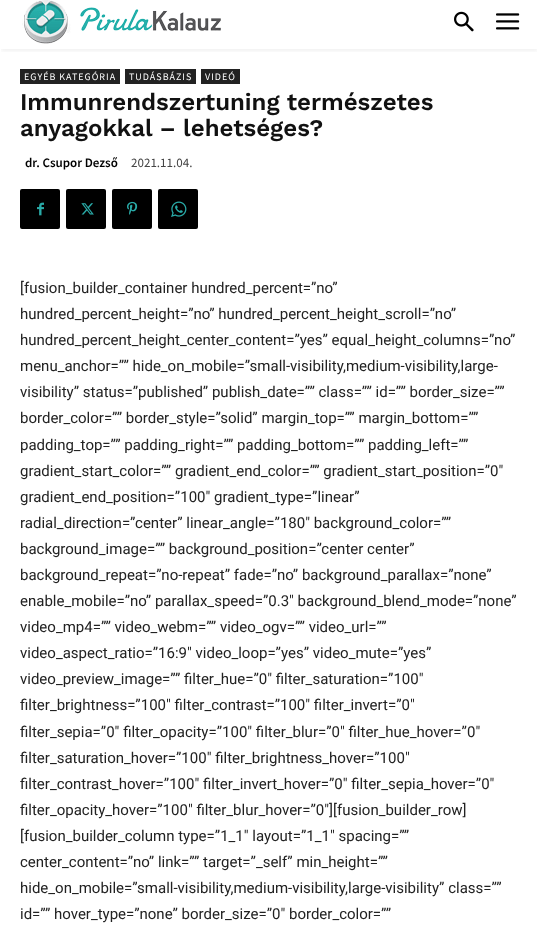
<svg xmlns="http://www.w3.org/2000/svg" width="537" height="932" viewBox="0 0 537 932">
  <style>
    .t1 { font: 10px Source Sans Pro; letter-spacing: 1px; fill: #fff; }
    .t2 { font: 600 24px Work Sans; fill: #111; }
    .t3 { font: 600 13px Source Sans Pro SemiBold; fill: #000; }
    .t4 { font: 13px Source Sans Pro; fill: #444; }
    .t5 { font: 15px Roboto; fill: #222; }
  </style>
  <defs>
    <clipPath id="clip1"><rect x="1" y="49" width="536" height="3"/></clipPath>
  </defs>
  <rect width="100%" height="100%" fill="#fff"/>
  <image x="22" y="0" width="199" height="44" href="images/1.png"/>
  <image x="454" y="11" width="20" height="21" href="images/2.png"/>
  <image x="496" y="13" width="24" height="17" href="images/3.png"/>
  <g clip-path="url(#clip1)">
    <rect x="1" y="2" width="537" height="49" fill="#0000000f" filter="blur(2px)"/>
  </g>
  <rect x="20" y="69" width="100" height="15" fill="#222"/>
  <text x="24" y="80" class="t1">EGYÉB KATEGÓRIA</text>
  <rect x="125" y="69" width="71" height="15" fill="#222"/>
  <text x="129" y="80" class="t1">TUDÁSBÁZIS</text>
  <rect x="201" y="69" width="39" height="15" fill="#222"/>
  <text x="205" y="80" class="t1">VIDEÓ</text>
  <text x="20" y="110" class="t2">Immunrendszertuning természetes</text>
  <text x="20" y="136" class="t2">anyagokkal – lehetséges?</text>
  <text x="25" y="167" class="t3">dr. Csupor Dezső</text>
  <text x="131" y="167" class="t4">2021.11.04.</text>
  <rect x="20" y="189" width="40" height="40" rx="2" fill="#000"/>
  <image x="37" y="202" width="7" height="14" href="images/4.png"/>
  <rect x="66" y="189" width="40" height="40" rx="2" fill="#000"/>
  <image x="81" y="203" width="13" height="12" href="images/5.png"/>
  <rect x="112" y="189" width="40" height="40" rx="2" fill="#000"/>
  <image x="127" y="201" width="11" height="14" href="images/6.png"/>
  <rect x="158" y="189" width="40" height="40" rx="2" fill="#000"/>
  <image x="171" y="201" width="16" height="16" href="images/7.png"/>
  <text x="20" y="293" class="t5">[fusion_builder_container hundred_percent=”no”</text>
  <text x="20" y="319" class="t5">hundred_percent_height=”no” hundred_percent_height_scroll=”no”</text>
  <text x="20" y="345" class="t5">hundred_percent_height_center_content=”yes” equal_height_columns=”no”</text>
  <text x="20" y="371" class="t5">menu_anchor=”” hide_on_mobile=”small-visibility,medium-visibility,large-</text>
  <text x="20" y="397" class="t5">visibility” status=”published” publish_date=”” class=”” id=”” border_size=””</text>
  <text x="20" y="423" class="t5">border_color=”” border_style=”solid” margin_top=”” margin_bottom=””</text>
  <text x="20" y="450" class="t5">padding_top=”” padding_right=”” padding_bottom=”” padding_left=””</text>
  <text x="20" y="476" class="t5">gradient_start_color=”” gradient_end_color=”” gradient_start_position=”0″</text>
  <text x="20" y="502" class="t5">gradient_end_position=”100″ gradient_type=”linear”</text>
  <text x="20" y="528" class="t5">radial_direction=”center” linear_angle=”180″ background_color=””</text>
  <text x="20" y="554" class="t5">background_image=”” background_position=”center center”</text>
  <text x="20" y="580" class="t5">background_repeat=”no-repeat” fade=”no” background_parallax=”none”</text>
  <text x="20" y="606" class="t5">enable_mobile=”no” parallax_speed=”0.3″ background_blend_mode=”none”</text>
  <text x="20" y="632" class="t5">video_mp4=”” video_webm=”” video_ogv=”” video_url=””</text>
  <text x="20" y="658" class="t5">video_aspect_ratio=”16:9″ video_loop=”yes” video_mute=”yes”</text>
  <text x="20" y="684" class="t5">video_preview_image=”” filter_hue=”0″ filter_saturation=”100″</text>
  <text x="20" y="710" class="t5">filter_brightness=”100″ filter_contrast=”100″ filter_invert=”0″</text>
  <text x="20" y="737" class="t5">filter_sepia=”0″ filter_opacity=”100″ filter_blur=”0″ filter_hue_hover=”0″</text>
  <text x="20" y="763" class="t5">filter_saturation_hover=”100″ filter_brightness_hover=”100″</text>
  <text x="20" y="789" class="t5">filter_contrast_hover=”100″ filter_invert_hover=”0″ filter_sepia_hover=”0″</text>
  <text x="20" y="815" class="t5">filter_opacity_hover=”100″ filter_blur_hover=”0″][fusion_builder_row]</text>
  <text x="20" y="841" class="t5">[fusion_builder_column type=”1_1″ layout=”1_1″ spacing=””</text>
  <text x="20" y="867" class="t5">center_content=”no” link=”” target=”_self” min_height=””</text>
  <text x="20" y="893" class="t5">hide_on_mobile=”small-visibility,medium-visibility,large-visibility” class=””</text>
  <text x="20" y="919" class="t5">id=”” hover_type=”none” border_size=”0″ border_color=””</text>
</svg>
